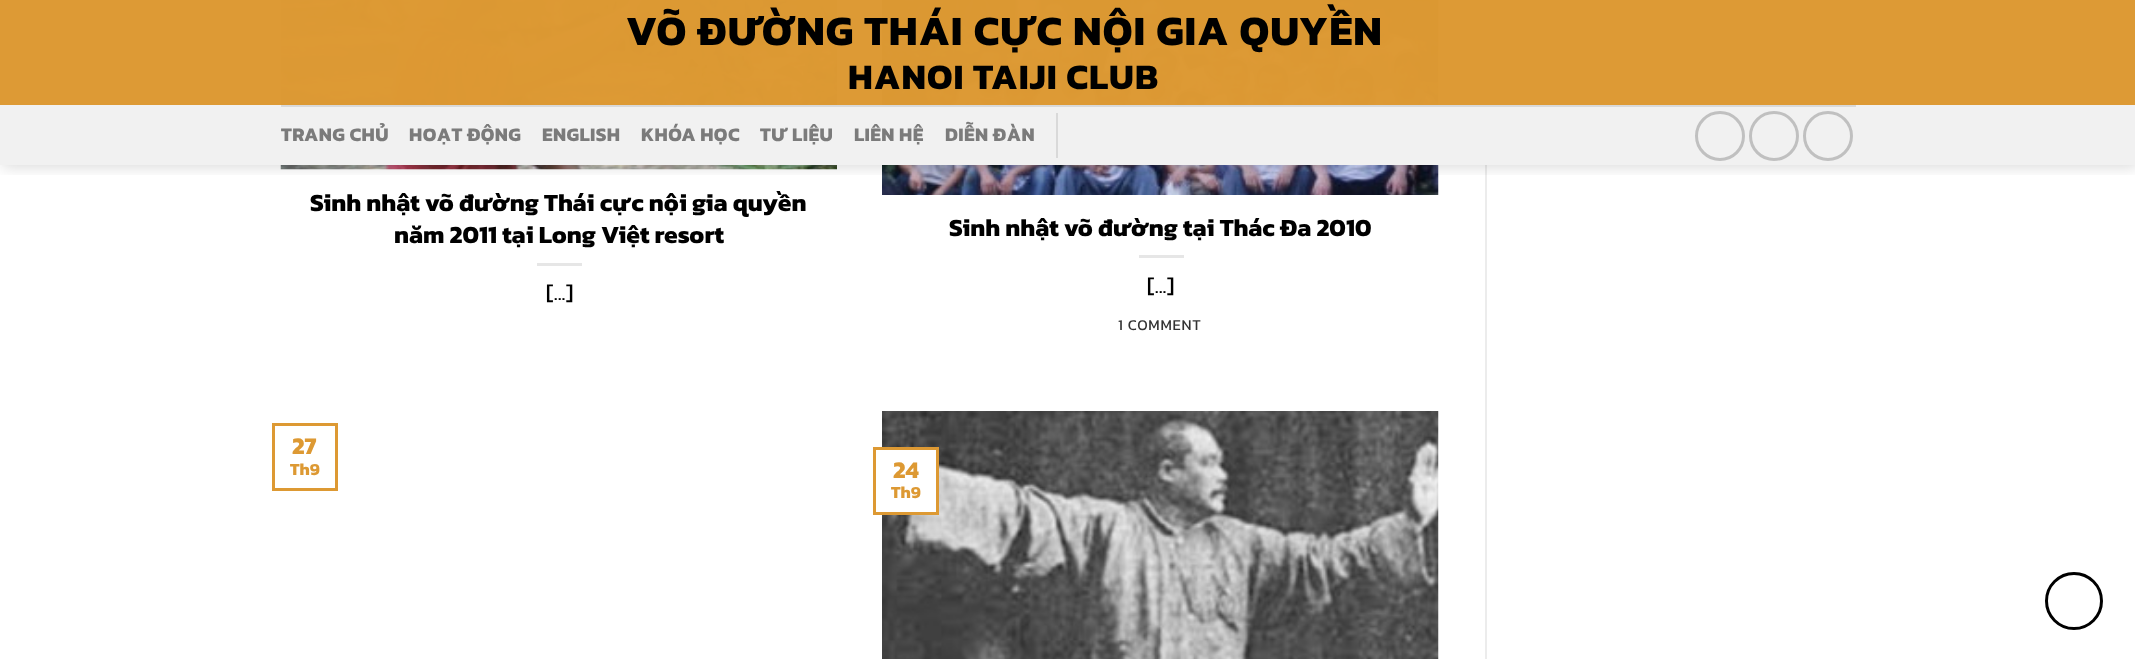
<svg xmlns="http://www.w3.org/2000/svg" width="2135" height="659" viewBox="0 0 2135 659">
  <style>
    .t1 { font: bold 42px Kanit; letter-spacing: 1px; fill: #000; }
    .t2 { font: bold 36px Kanit; letter-spacing: 1px; fill: #000; }
    .t3 { font: bold 19.25px Kanit; letter-spacing: 0.4px; fill: #7b7b7b; }
    .t4 { font: bold 24.8px Kanit; fill: #000; }
    .t5 { font: 22px Kanit; fill: #000; }
    .t6 { font: 15px Kanit; letter-spacing: 0.75px; fill: #333; }
    .t7 { font: bold 24px Kanit; fill: #d93; }
    .t8 { font: bold 17px Kanit; fill: #d93; }
  </style>
  <defs>
    <clipPath id="clip1"><rect x="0" y="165" width="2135" height="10"/></clipPath>
  </defs>
  <rect width="100%" height="100%" fill="#fff"/>
  <image x="280" y="0" width="557" height="170" href="images/1.png"/>
  <image x="882" y="0" width="557" height="195" href="images/2.png"/>
  <rect x="1485" y="0" width="2" height="659" fill="#ececec"/>
  <g clip-path="url(#clip1)">
    <rect x="2" y="2" width="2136" height="165" fill="#00000026" filter="blur(7.5px)"/>
  </g>
  <rect x="0" y="0" width="2135" height="105" fill="#dd9933e6"/>
  <rect x="0" y="0" width="2135" height="105" fill="#dd9933e6"/>
  <text x="626" y="45" word-spacing="0.5" class="t1">VÕ ĐƯỜNG THÁI CỰC NỘI GIA QUYỀN</text>
  <text x="848" y="89" class="t2">HANOI TAIJI CLUB</text>
  <rect x="0" y="105" width="2135" height="60" fill="#f1f1f1"/>
  <rect x="281" y="105" width="1575" height="2" fill="#d9d9d9"/>
  <text x="281" y="141" class="t3">TRANG CHỦ</text>
  <text x="409" y="141" class="t3">HOẠT ĐỘNG</text>
  <text x="542" y="141" class="t3">ENGLISH</text>
  <text x="641" y="141" class="t3">KHÓA HỌC</text>
  <text x="760" y="141" class="t3">TƯ LIỆU</text>
  <text x="854" y="141" class="t3">LIÊN HỆ</text>
  <text x="945" y="141" class="t3">DIỄN ĐÀN</text>
  <rect x="1056" y="113" width="2" height="45" fill="#d9d9d9"/>
  <circle cx="1720" cy="136" r="23.5" fill="none" stroke="#c0c0c0" stroke-width="3"/>
  <circle cx="1774" cy="136" r="23.5" fill="none" stroke="#c0c0c0" stroke-width="3"/>
  <circle cx="1828" cy="136" r="23.5" fill="none" stroke="#c0c0c0" stroke-width="3"/>
  <text x="310" y="211" class="t4">Sinh nhật võ đường Thái cực nội gia quyền</text>
  <text x="394" y="243" class="t4">năm 2011 tại Long Việt resort</text>
  <rect x="537" y="263" width="45" height="3" fill="#e6e6e6"/>
  <text x="546" y="300" class="t5">[...]</text>
  <text x="949" y="236" class="t4">Sinh nhật võ đường tại Thác Đa 2010</text>
  <rect x="1139" y="255" width="45" height="3" fill="#e6e6e6"/>
  <text x="1147" y="293" class="t5">[...]</text>
  <text x="1118" y="330" class="t6">1 COMMENT</text>
  <rect x="273.5" y="424.5" width="63" height="65" fill="none" stroke="#d93" stroke-width="3"/>
  <text x="292" y="454" class="t7">27</text>
  <text x="290" y="475" class="t8">Th9</text>
  <image x="882" y="411" width="557" height="248" href="images/3.png"/>
  <rect x="882" y="450" width="54" height="62" fill="#fff"/>
  <rect x="874.5" y="448.5" width="63" height="65" fill="none" stroke="#d93" stroke-width="3"/>
  <text x="893" y="478" class="t7">24</text>
  <text x="891" y="498" class="t8">Th9</text>
  <circle cx="2074" cy="601" r="27.5" fill="none" stroke="#000" stroke-width="3"/>
</svg>
